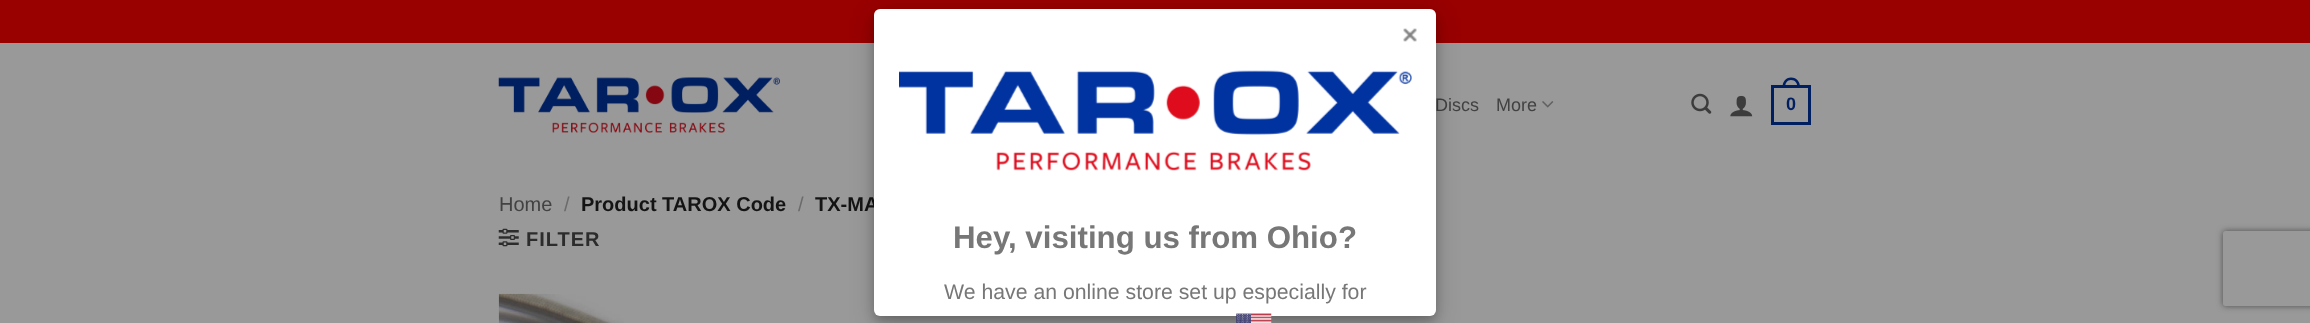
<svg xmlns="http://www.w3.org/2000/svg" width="2310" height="323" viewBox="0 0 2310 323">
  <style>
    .t1 { font: 18px Liberation Sans; fill: #424242; }
    .t2 { font: bold 18px Liberation Sans; fill: #001f60; }
    .t3 { font: 20px Liberation Sans; fill: #424242; }
    .t4 { font: 20px Liberation Sans; fill: #6b6b6b; }
    .t5 { font: bold 20px Liberation Sans; fill: #141414; }
    .t6 { font: bold 20px Liberation Sans; letter-spacing: 1px; fill: #2c2c2c; }
    .t7 { font: bold 31.25px Liberation Sans; fill: #777; }
    .t8 { font: 21.25px Liberation Sans; fill: #777; }
  </style>
  <defs>
    <clipPath id="clip1"><path d="M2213 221H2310V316H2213ZM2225.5 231H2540.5C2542 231 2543 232 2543 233.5V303.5C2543 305 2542 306 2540.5 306H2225.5C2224 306 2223 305 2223 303.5V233.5C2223 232 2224 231 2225.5 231Z" clip-rule="evenodd"/></clipPath>
  </defs>
  <rect width="100%" height="100%" fill="#999"/>
  <rect x="0" y="0" width="2310" height="43" fill="#900"/>
  <image x="498" y="77" width="282" height="56" href="images/1.png"/>
  <text x="1435" y="111" class="t1">Discs</text>
  <text x="1496" y="111" class="t1">More</text>
  <image x="1542" y="101" width="12" height="7" href="images/2.png"/>
  <image x="1691" y="93" width="21" height="21" href="images/3.png"/>
  <image x="1730" y="95" width="23" height="22" href="images/4.png"/>
  <rect x="1772.5" y="86.5" width="37" height="37" fill="none" stroke="#001f60" stroke-width="3"/>
  <path d="M1791 77.5C1797 77.5 1800 82 1800 87.5H1782.5C1782.5 82 1785.5 77.5 1791 77.5ZM1791 80C1795.5 80 1797.5 83.5 1797.5 87.5H1785C1785 83.5 1787 80 1791 80Z" fill="#001f60" fill-rule="evenodd"/>
  <text x="1786" y="110" class="t2">0</text>
  <text x="499" y="211" class="t3">Home</text>
  <text x="564" y="211" class="t4">/</text>
  <text x="581" y="211" class="t5">Product TAROX Code</text>
  <text x="798" y="211" class="t4">/</text>
  <text x="815" y="211" class="t5">TX-MA</text>
  <image x="498" y="228" width="21" height="19" href="images/5.png"/>
  <text x="526" y="246" class="t6">FILTER</text>
  <image x="498" y="293" width="126" height="30" href="images/6.png"/>
  <rect x="874" y="16" width="562" height="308" rx="6" fill="#00000030" filter="blur(12.5px)"/>
  <rect x="874" y="14" width="562" height="307" rx="6" fill="#00000033" filter="blur(5px)"/>
  <rect x="874" y="9" width="562" height="307" rx="6" fill="#fff"/>
  <image x="1403" y="28" width="14" height="14" href="images/7.png"/>
  <image x="899" y="70" width="513" height="101" href="images/8.png"/>
  <text x="953" y="248" class="t7">Hey, visiting us from Ohio?</text>
  <text x="944" y="299" class="t8">We have an online store set up especially for</text>
  <image x="1236" y="313" width="36" height="10" href="images/9.png"/>
  <g clip-path="url(#clip1)">
    <rect x="2223" y="231" width="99" height="75" rx="2.5" fill="#4d4d4d" filter="blur(3px)"/>
  </g>
</svg>
